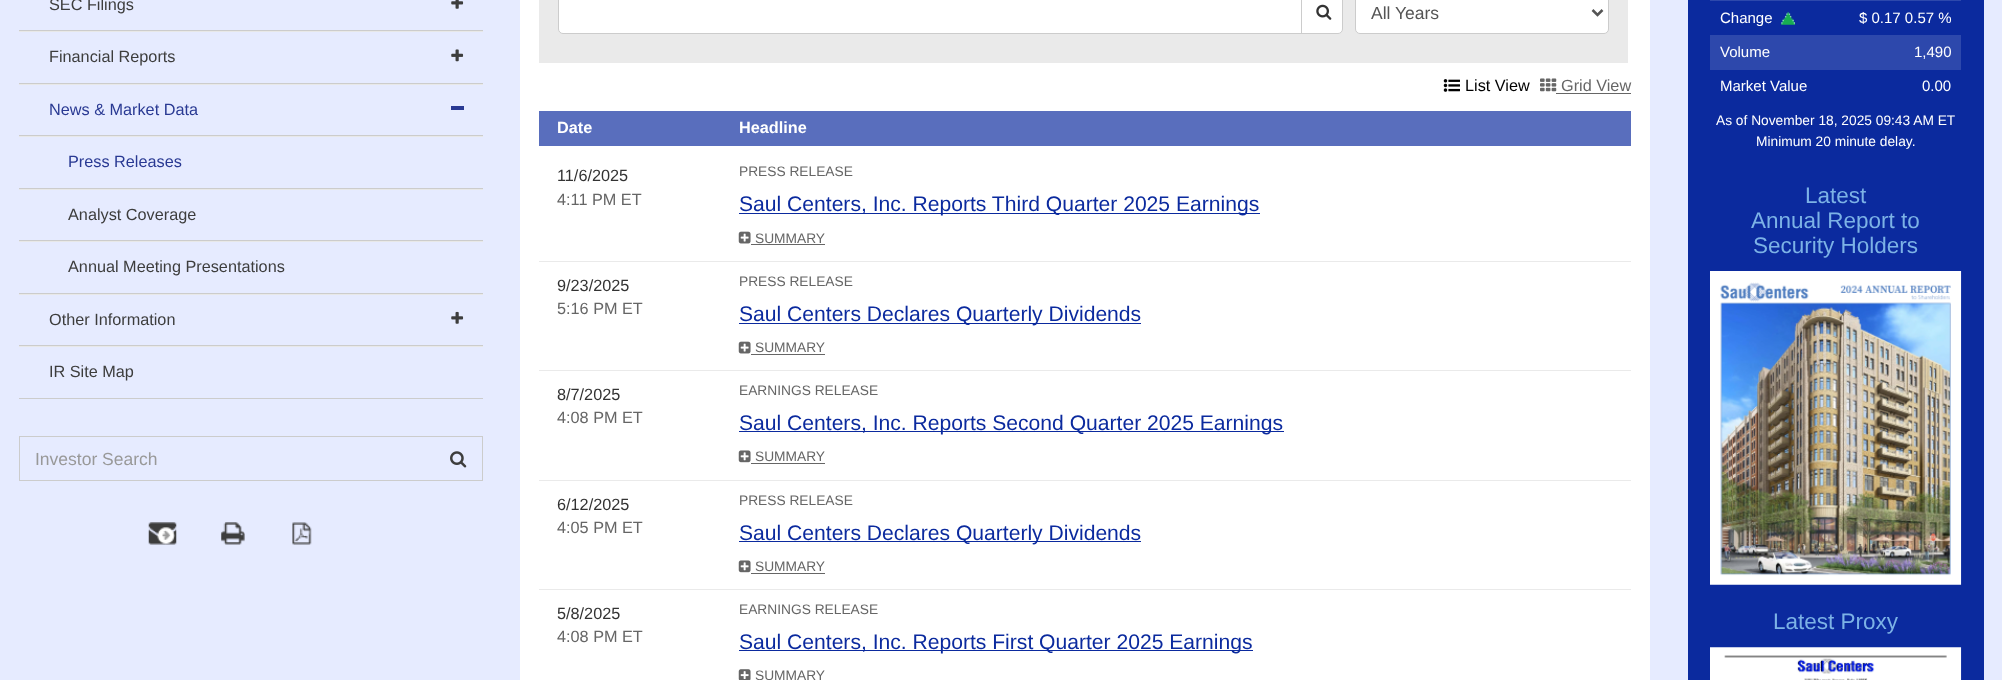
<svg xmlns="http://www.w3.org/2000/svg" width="2002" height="680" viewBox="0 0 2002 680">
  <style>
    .t1 { font: 16.25px Liberation Sans; fill: #3d3d3d; }
    .t2 { font: 16.25px Liberation Sans; fill: #293993; }
    .t3 { font: 17.5px Liberation Sans; fill: #999; }
    .t4 { font: 17.5px Liberation Sans; fill: #555; }
    .t5 { font: 16.25px Liberation Sans; fill: #000; }
    .t6 { font: 16.25px Liberation Sans; fill: #666; }
    .t7 { font: bold 16.25px Liberation Sans; fill: #fff; }
    .t8 { font: 16.25px Liberation Sans; fill: #333; }
    .t9 { font: 13.75px Liberation Sans; fill: #666; }
    .t10 { font: 21.1px Liberation Sans; fill: #0b2a9e; }
    .t11 { font: 15px Liberation Sans; fill: #fff; }
    .t12 { font: 13.75px Liberation Sans; fill: #fff; }
    .t13 { font: 22.5px Liberation Sans; fill: #7cb2e6; }
  </style>
  <rect width="100%" height="100%" fill="#e6ebff"/>
  <rect x="19" y="30" width="464" height="1" fill="#ccc"/>
  <text x="49" y="10" class="t1">SEC Filings</text>
  <image x="451" y="0" width="13" height="9" href="images/1.png"/>
  <rect x="19" y="31" width="464" height="1" fill="#e8e8e8"/>
  <rect x="19" y="83" width="464" height="1" fill="#ccc"/>
  <text x="49" y="62" class="t1">Financial Reports</text>
  <image x="451" y="49" width="13" height="13" href="images/2.png"/>
  <rect x="19" y="84" width="464" height="1" fill="#e8e8e8"/>
  <rect x="19" y="135" width="464" height="1" fill="#ccc"/>
  <text x="49" y="115" class="t2">News &amp; Market Data</text>
  <rect x="451" y="106" width="13" height="4" fill="#293993"/>
  <rect x="19" y="136" width="464" height="1" fill="#e8e8e8"/>
  <rect x="19" y="188" width="464" height="1" fill="#ccc"/>
  <text x="68" y="167" class="t2">Press Releases</text>
  <rect x="19" y="189" width="464" height="1" fill="#e8e8e8"/>
  <rect x="19" y="240" width="464" height="1" fill="#ccc"/>
  <text x="68" y="220" class="t1">Analyst Coverage</text>
  <rect x="19" y="241" width="464" height="1" fill="#e8e8e8"/>
  <rect x="19" y="293" width="464" height="1" fill="#ccc"/>
  <text x="68" y="272" class="t1">Annual Meeting Presentations</text>
  <rect x="19" y="294" width="464" height="1" fill="#e8e8e8"/>
  <rect x="19" y="345" width="464" height="1" fill="#ccc"/>
  <text x="49" y="325" class="t1">Other Information</text>
  <image x="451" y="311" width="13" height="13" href="images/3.png"/>
  <rect x="19" y="346" width="464" height="1" fill="#e8e8e8"/>
  <rect x="19" y="398" width="464" height="1" fill="#ccc"/>
  <text x="49" y="377" class="t1">IR Site Map</text>
  <rect x="19.5" y="436.5" width="463" height="44" fill="none" stroke="#ccc"/>
  <text x="35" y="465" class="t3">Investor Search</text>
  <image x="450" y="451" width="17" height="17" href="images/4.png"/>
  <image x="148" y="522" width="29" height="23" href="images/5.png"/>
  <image x="221" y="522" width="24" height="23" href="images/6.png"/>
  <image x="292" y="522" width="20" height="23" href="images/7.png"/>
  <rect x="520" y="0" width="1130" height="680" fill="#fff"/>
  <rect x="539" y="0" width="1089" height="63" fill="#eaeaea"/>
  <rect x="558.5" y="-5.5" width="784" height="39" rx="4.5" fill="#fff" stroke="#ccc"/>
  <rect x="1301" y="0" width="1" height="34" fill="#ccc"/>
  <image x="1316" y="4" width="16" height="16" href="images/8.png"/>
  <rect x="1355.5" y="-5.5" width="253" height="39" rx="4.5" fill="#fff" stroke="#ccc"/>
  <path d="M1592.5 10L1597.5 15L1602.5 10" fill="none" stroke="#555" stroke-width="2.5"/>
  <text x="1371" y="19" class="t4">All Years</text>
  <image x="1443" y="79" width="17" height="13" href="images/9.png"/>
  <text x="1465" y="91" class="t5">List View</text>
  <image x="1540" y="78" width="17" height="14" href="images/10.png"/>
  <text x="1561" y="91" class="t6">Grid View</text>
  <rect x="1556" y="93" width="75" height="1" fill="#666"/>
  <rect x="539" y="111" width="1092" height="35" fill="#596ebd"/>
  <text x="557" y="133" class="t7">Date</text>
  <text x="739" y="133" class="t7">Headline</text>
  <rect x="539" y="261" width="1092" height="1" fill="#eaeaea"/>
  <text x="557" y="181" class="t8">11/6/2025</text>
  <text x="557" y="205" class="t6">4:11 PM ET</text>
  <text x="739" y="176" class="t9">PRESS RELEASE</text>
  <rect x="739" y="213" width="521" height="1" fill="#0b2a9e"/>
  <text x="739" y="211" class="t10">Saul Centers, Inc. Reports Third Quarter 2025 Earnings</text>
  <image x="738" y="231" width="13" height="13" href="images/11.png"/>
  <text x="755" y="243" class="t9">SUMMARY</text>
  <rect x="751" y="244" width="74" height="1" fill="#666"/>
  <rect x="539" y="370" width="1092" height="1" fill="#eaeaea"/>
  <text x="557" y="291" class="t8">9/23/2025</text>
  <text x="557" y="314" class="t6">5:16 PM ET</text>
  <text x="739" y="286" class="t9">PRESS RELEASE</text>
  <rect x="739" y="323" width="402" height="1" fill="#0b2a9e"/>
  <text x="739" y="321" class="t10">Saul Centers Declares Quarterly Dividends</text>
  <image x="738" y="341" width="13" height="13" href="images/11.png"/>
  <text x="755" y="352" class="t9">SUMMARY</text>
  <rect x="751" y="354" width="74" height="1" fill="#666"/>
  <rect x="539" y="480" width="1092" height="1" fill="#eaeaea"/>
  <text x="557" y="400" class="t8">8/7/2025</text>
  <text x="557" y="423" class="t6">4:08 PM ET</text>
  <text x="739" y="395" class="t9">EARNINGS RELEASE</text>
  <rect x="739" y="431" width="545" height="1" fill="#0b2a9e"/>
  <text x="739" y="430" class="t10">Saul Centers, Inc. Reports Second Quarter 2025 Earnings</text>
  <image x="738" y="450" width="13" height="13" href="images/12.png"/>
  <text x="755" y="461" class="t9">SUMMARY</text>
  <rect x="751" y="463" width="74" height="1" fill="#666"/>
  <rect x="539" y="589" width="1092" height="1" fill="#eaeaea"/>
  <text x="557" y="510" class="t8">6/12/2025</text>
  <text x="557" y="533" class="t6">4:05 PM ET</text>
  <text x="739" y="505" class="t9">PRESS RELEASE</text>
  <rect x="739" y="541" width="402" height="1" fill="#0b2a9e"/>
  <text x="739" y="540" class="t10">Saul Centers Declares Quarterly Dividends</text>
  <image x="738" y="560" width="13" height="13" href="images/12.png"/>
  <text x="755" y="571" class="t9">SUMMARY</text>
  <rect x="751" y="573" width="74" height="1" fill="#666"/>
  <text x="557" y="619" class="t8">5/8/2025</text>
  <text x="557" y="642" class="t6">4:08 PM ET</text>
  <text x="739" y="614" class="t9">EARNINGS RELEASE</text>
  <rect x="739" y="650" width="514" height="1" fill="#0b2a9e"/>
  <text x="739" y="649" class="t10">Saul Centers, Inc. Reports First Quarter 2025 Earnings</text>
  <image x="738" y="669" width="13" height="11" href="images/13.png"/>
  <text x="755" y="680" class="t9">SUMMARY</text>
  <rect x="1688" y="0" width="296" height="680" fill="#0b2a9e"/>
  <rect x="1710" y="0" width="251" height="1" fill="#2d48ac"/>
  <text x="1720" y="23" class="t11">Change</text>
  <image x="1781" y="12" width="14" height="13" href="images/14.png"/>
  <text x="1859" y="23" class="t11">$ 0.17 0.57 %</text>
  <rect x="1710" y="35" width="251" height="35" fill="#2d48ac"/>
  <text x="1720" y="57" class="t11">Volume</text>
  <text x="1914" y="57" class="t11">1,490</text>
  <text x="1720" y="91" class="t11">Market Value</text>
  <text x="1922" y="91" class="t11">0.00</text>
  <text x="1716" y="125" class="t12">As of November 18, 2025 09:43 AM ET</text>
  <text x="1756" y="146" class="t12">Minimum 20 minute delay.</text>
  <text x="1805" y="203" class="t13">Latest</text>
  <text x="1751" y="228" class="t13">Annual Report to</text>
  <text x="1753" y="253" class="t13">Security Holders</text>
  <image x="1710" y="271" width="252" height="314" href="images/15.png"/>
  <text x="1773" y="629" class="t13">Latest Proxy</text>
  <image x="1710" y="647" width="252" height="33" href="images/16.png"/>
</svg>
